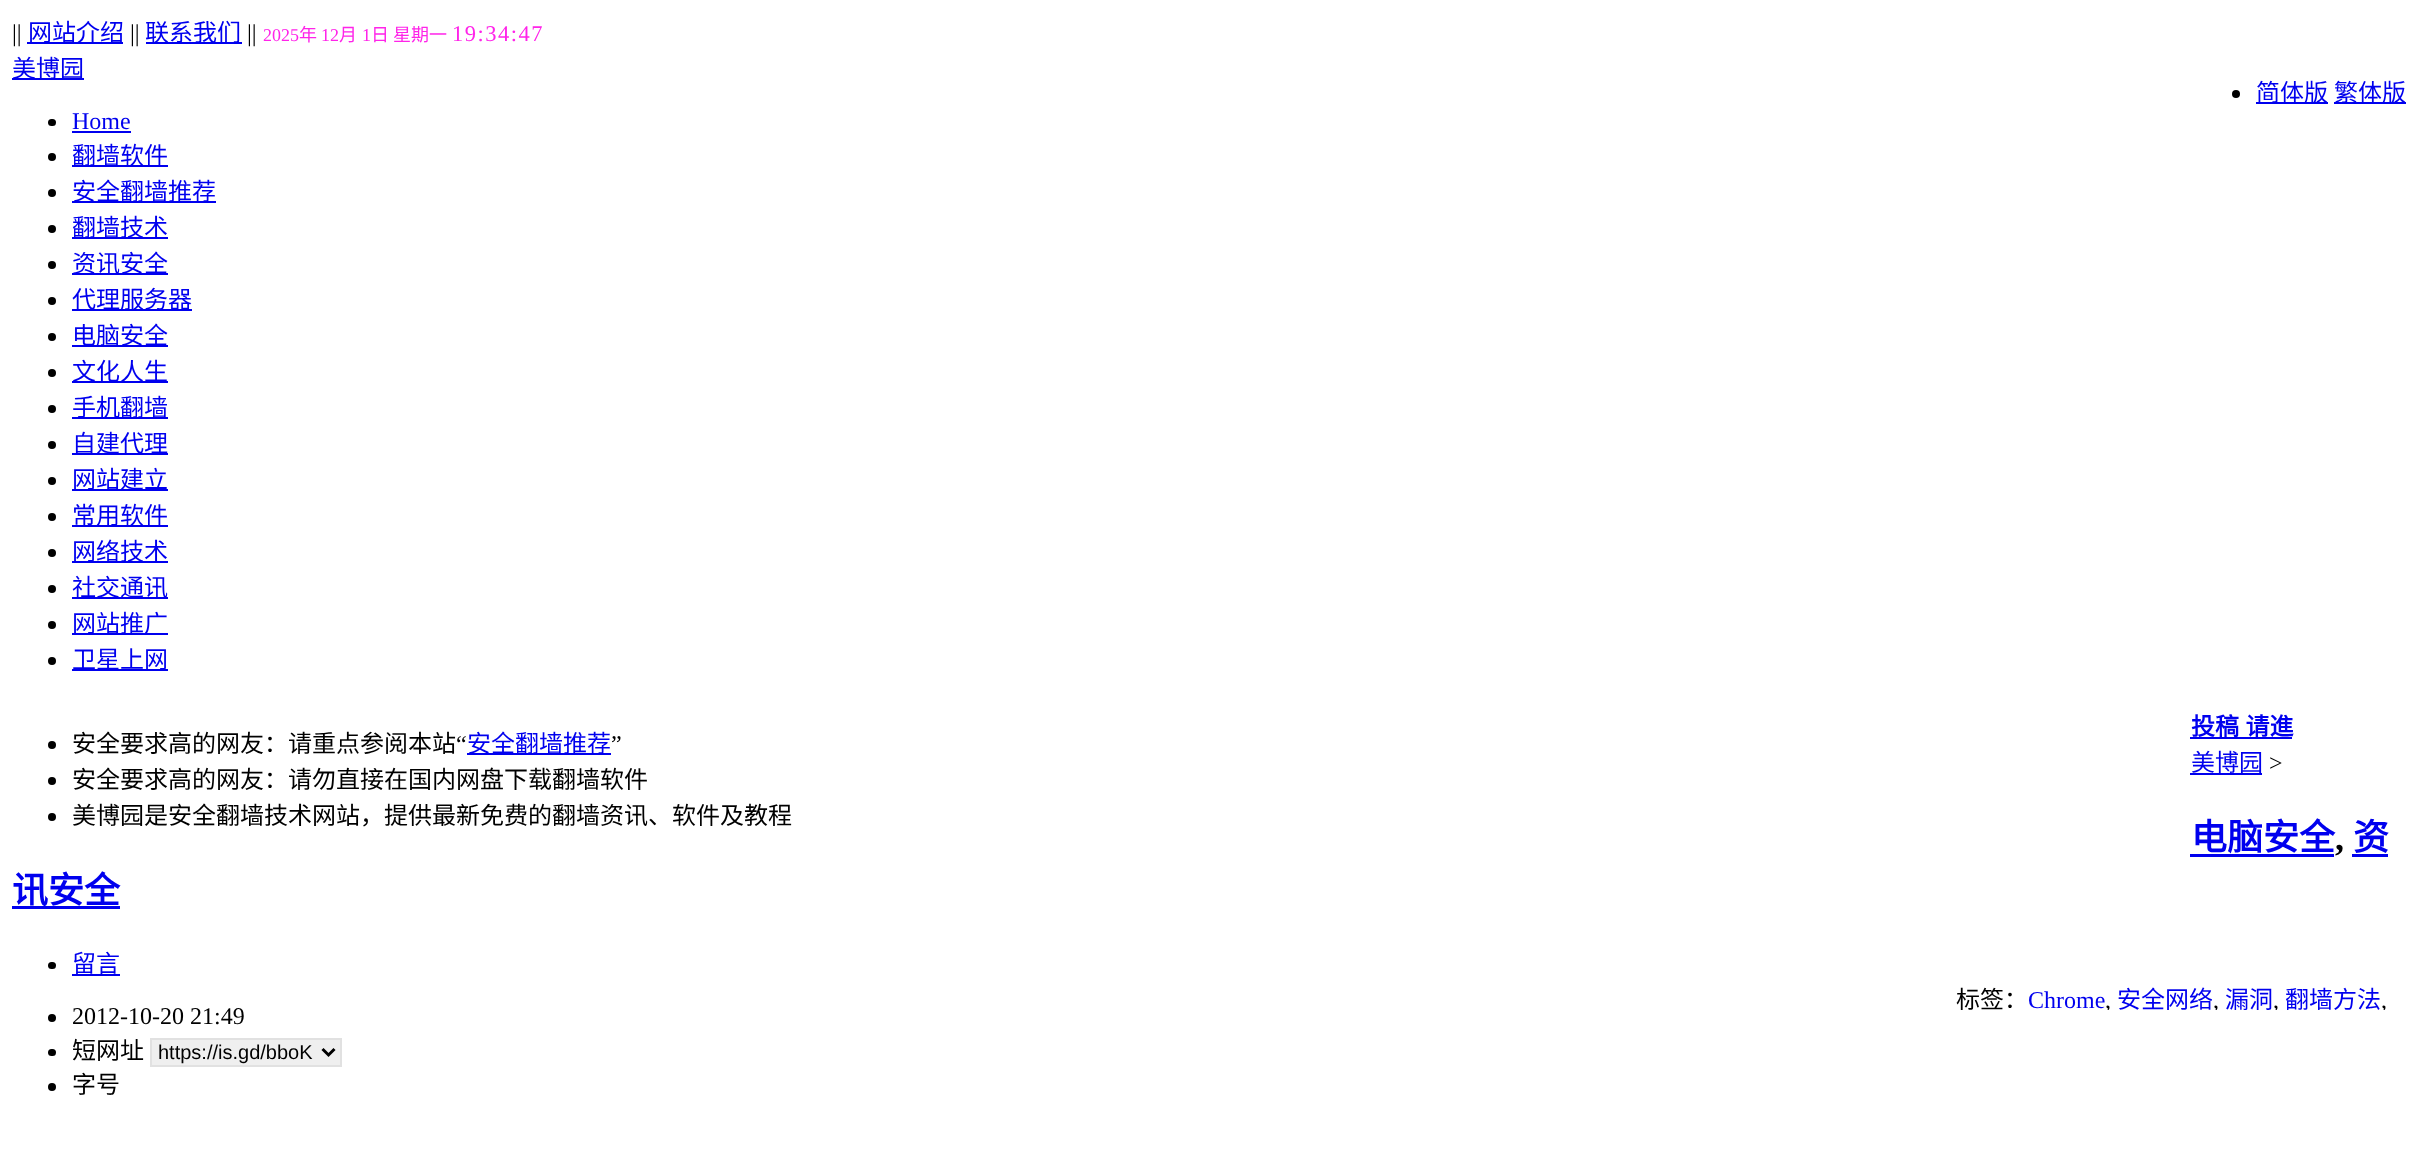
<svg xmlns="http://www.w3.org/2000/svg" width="2418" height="1170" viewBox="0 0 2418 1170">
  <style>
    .t1 { font: 24px Liberation Serif; fill: #000; }
    .t2 { font: 24px Noto Sans CJK SC; fill: #00e; }
    .t3 { font: 18px Liberation Serif; fill: #ff24e9; }
    .t4 { font: 18px Noto Sans CJK SC; fill: #ff24e9; }
    .t5 { font: 22.5px Liberation Serif; letter-spacing: 1.5px; fill: #ff24e9; }
    .t6 { font: 24px Liberation Serif; fill: #00e; }
    .t7 { font: bold 24px Noto Sans CJK SC; fill: #00e; }
    .t8 { font: 24px Noto Sans CJK SC; fill: #000; }
    .t9 { font: bold 36px Noto Sans CJK SC; fill: #00e; }
    .t10 { font: bold 36px Liberation Serif; fill: #000; }
    .t11 { font: 20px Liberation Sans; fill: #000; }
  </style>
  <defs>
    <clipPath id="clip1"><rect x="1911" y="980" width="495" height="30"/></clipPath>
  </defs>
  <rect width="100%" height="100%" fill="#fff"/>
  <text x="12" y="41" class="t1">||</text>
  <rect x="27" y="42" width="96" height="2" fill="#00e"/>
  <text x="28" y="41" class="t2">网站介绍</text>
  <text x="130" y="41" class="t1">||</text>
  <rect x="146" y="42" width="96" height="2" fill="#00e"/>
  <text x="145" y="41" class="t2">联系我们</text>
  <text x="247" y="41" class="t1">||</text>
  <text x="263" y="41" class="t3">2025</text>
  <text x="299" y="41" class="t4">年</text>
  <text x="321" y="41" class="t3">12</text>
  <text x="339" y="41" class="t4">月</text>
  <text x="362" y="41" class="t3">1</text>
  <text x="371" y="41" class="t4">日</text>
  <text x="393" y="41" class="t4">星期一</text>
  <text x="452" y="41" class="t5">19:34:47</text>
  <circle cx="2236" cy="94" r="4" fill="#000"/>
  <rect x="2256" y="102" width="72" height="2" fill="#00e"/>
  <text x="2256" y="101" class="t2">简体版</text>
  <rect x="2334" y="102" width="72" height="2" fill="#00e"/>
  <text x="2334" y="101" class="t2">繁体版</text>
  <rect x="12" y="78" width="72" height="2" fill="#00e"/>
  <text x="12" y="77" class="t2">美博园</text>
  <rect x="48" y="119" width="8" height="7" rx="3.5" fill="#000"/>
  <text x="72" y="129" class="t6">Home</text>
  <rect x="72" y="131" width="59" height="2" fill="#00e"/>
  <circle cx="52" cy="157" r="4" fill="#000"/>
  <rect x="72" y="165" width="96" height="2" fill="#00e"/>
  <text x="72" y="164" class="t2">翻墙软件</text>
  <circle cx="52" cy="193" r="4" fill="#000"/>
  <rect x="72" y="201" width="144" height="2" fill="#00e"/>
  <text x="72" y="200" class="t2">安全翻墙推荐</text>
  <circle cx="52" cy="229" r="4" fill="#000"/>
  <rect x="72" y="237" width="96" height="2" fill="#00e"/>
  <text x="72" y="236" class="t2">翻墙技术</text>
  <circle cx="52" cy="265" r="4" fill="#000"/>
  <rect x="72" y="273" width="96" height="2" fill="#00e"/>
  <text x="72" y="272" class="t2">资讯安全</text>
  <circle cx="52" cy="301" r="4" fill="#000"/>
  <rect x="72" y="309" width="120" height="2" fill="#00e"/>
  <text x="72" y="308" class="t2">代理服务器</text>
  <circle cx="52" cy="337" r="4" fill="#000"/>
  <rect x="72" y="345" width="96" height="2" fill="#00e"/>
  <text x="72" y="344" class="t2">电脑安全</text>
  <circle cx="52" cy="373" r="4" fill="#000"/>
  <rect x="72" y="381" width="96" height="2" fill="#00e"/>
  <text x="72" y="380" class="t2">文化人生</text>
  <circle cx="52" cy="409" r="4" fill="#000"/>
  <rect x="72" y="417" width="96" height="2" fill="#00e"/>
  <text x="72" y="416" class="t2">手机翻墙</text>
  <circle cx="52" cy="445" r="4" fill="#000"/>
  <rect x="72" y="453" width="96" height="2" fill="#00e"/>
  <text x="72" y="452" class="t2">自建代理</text>
  <circle cx="52" cy="481" r="4" fill="#000"/>
  <rect x="72" y="489" width="96" height="2" fill="#00e"/>
  <text x="72" y="488" class="t2">网站建立</text>
  <circle cx="52" cy="517" r="4" fill="#000"/>
  <rect x="72" y="525" width="96" height="2" fill="#00e"/>
  <text x="72" y="524" class="t2">常用软件</text>
  <circle cx="52" cy="553" r="4" fill="#000"/>
  <rect x="72" y="561" width="96" height="2" fill="#00e"/>
  <text x="72" y="560" class="t2">网络技术</text>
  <circle cx="52" cy="589" r="4" fill="#000"/>
  <rect x="72" y="597" width="96" height="2" fill="#00e"/>
  <text x="72" y="596" class="t2">社交通讯</text>
  <circle cx="52" cy="625" r="4" fill="#000"/>
  <rect x="72" y="633" width="96" height="2" fill="#00e"/>
  <text x="72" y="632" class="t2">网站推广</text>
  <circle cx="52" cy="661" r="4" fill="#000"/>
  <rect x="72" y="669" width="96" height="2" fill="#00e"/>
  <text x="72" y="668" class="t2">卫星上网</text>
  <text x="2191" y="735" word-spacing="1" class="t7">投稿 请進</text>
  <rect x="2190" y="737" width="102" height="2" fill="#00e"/>
  <text x="72" y="752" class="t8">安全要求高的网友：请重点参阅本站</text>
  <text x="456" y="752" class="t1">“</text>
  <rect x="467" y="753" width="144" height="2" fill="#00e"/>
  <text x="467" y="752" class="t2">安全翻墙推荐</text>
  <text x="611" y="752" class="t1">”</text>
  <circle cx="52" cy="745" r="4" fill="#000"/>
  <circle cx="52" cy="781" r="4" fill="#000"/>
  <text x="72" y="788" class="t8">安全要求高的网友：请勿直接在国内网盘下载翻墙软件</text>
  <circle cx="52" cy="817" r="4" fill="#000"/>
  <text x="72" y="824" class="t8">美博园是安全翻墙技术网站，提供最新免费的翻墙资讯、软件及教程</text>
  <text x="2191" y="771" class="t2">美博园</text>
  <rect x="2190" y="773" width="72" height="2" fill="#00e"/>
  <text x="2269" y="771" class="t1">&gt;</text>
  <text x="2191" y="850" class="t9">电脑安全</text>
  <rect x="2190" y="854" width="144" height="3" fill="#00e"/>
  <text x="2335" y="850" class="t10">,</text>
  <text x="2353" y="850" class="t9">资</text>
  <rect x="2352" y="854" width="36" height="3" fill="#00e"/>
  <text x="12" y="903" class="t9">讯安全</text>
  <rect x="12" y="906" width="108" height="3" fill="#00e"/>
  <rect x="48" y="962" width="8" height="7" rx="3.5" fill="#000"/>
  <text x="72" y="972" class="t2">留言</text>
  <rect x="72" y="974" width="48" height="2" fill="#00e"/>
  <text x="1956" y="1008" class="t8">标签：</text>
  <text x="2028" y="1008" class="t6">Chrome</text>
  <g clip-path="url(#clip1)">
    <text x="2105" y="1008" class="t1">,</text>
  </g>
  <text x="2117" y="1008" class="t2">安全网络</text>
  <g clip-path="url(#clip1)">
    <text x="2213" y="1008" class="t1">,</text>
  </g>
  <text x="2225" y="1008" class="t2">漏洞</text>
  <g clip-path="url(#clip1)">
    <text x="2273" y="1008" class="t1">,</text>
  </g>
  <text x="2285" y="1008" class="t2">翻墙方法</text>
  <g clip-path="url(#clip1)">
    <text x="2381" y="1008" class="t1">,</text>
  </g>
  <circle cx="52" cy="1018" r="4" fill="#000"/>
  <text x="72" y="1024" class="t1">2012-10-20 21:49</text>
  <rect x="48" y="1049" width="8" height="7" rx="3.5" fill="#000"/>
  <text x="72" y="1059" class="t8">短网址</text>
  <rect x="151" y="1039" width="190" height="27" fill="#efefef" stroke="#e1e1e1" stroke-width="2"/>
  <path d="M322.5 1049L328.5 1055L334.5 1049" fill="none" stroke="#000" stroke-width="3"/>
  <text x="158" y="1059" class="t11">https://is.gd/bboK</text>
  <circle cx="52" cy="1087" r="4" fill="#000"/>
  <text x="72" y="1093" class="t8">字号</text>
</svg>
